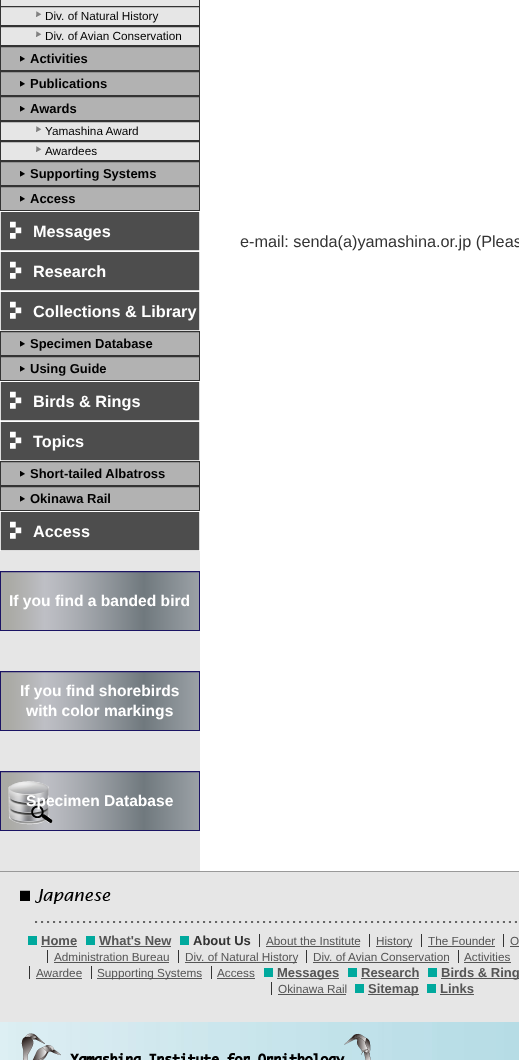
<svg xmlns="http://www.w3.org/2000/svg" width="519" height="1060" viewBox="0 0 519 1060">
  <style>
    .t1 { font: 11.75px Liberation Sans; fill: #000; }
    .t2 { font: bold 13px Liberation Sans; fill: #000; }
    .t3 { font: bold 16.25px Liberation Sans; fill: #fff; }
    .t4 { font: bold 15.6px Liberation Sans; fill: #fff; }
    .t5 { font: 16.25px Liberation Sans; fill: #333; }
    .t6 { font: bold 13px Liberation Sans; fill: #555; }
    .t7 { font: bold 13px Liberation Sans; fill: #333; }
    .t8 { font: 11.75px Liberation Sans; fill: #555; }
  </style>
  <rect width="100%" height="100%" fill="#fff"/>
  <rect x="0" y="551" width="200" height="320" fill="#e6e6e6"/>
  <rect x="0" y="871" width="519" height="1" fill="#999"/>
  <image x="0" y="0" width="200" height="211" href="images/1.png"/>
  <rect x="1" y="0" width="198" height="6" fill="#e6e6e6"/>
  <image x="1" y="6" width="198" height="20" href="images/2.png"/>
  <text x="45" y="20" class="t1">Div. of Natural History</text>
  <image x="1" y="26" width="198" height="20" href="images/2.png"/>
  <text x="45" y="40" class="t1">Div. of Avian Conservation</text>
  <image x="1" y="46" width="198" height="25" href="images/3.png"/>
  <text x="30" y="63" class="t2">Activities</text>
  <image x="1" y="71" width="198" height="25" href="images/3.png"/>
  <text x="30" y="88" class="t2">Publications</text>
  <image x="1" y="96" width="198" height="25" href="images/3.png"/>
  <text x="30" y="113" class="t2">Awards</text>
  <image x="1" y="121" width="198" height="20" href="images/2.png"/>
  <text x="45" y="135" class="t1">Yamashina Award</text>
  <image x="1" y="141" width="198" height="19" href="images/4.png"/>
  <text x="45" y="155" class="t1">Awardees</text>
  <text x="30" y="178" class="t2">Supporting Systems</text>
  <text x="30" y="203" class="t2">Access</text>
  <image x="0" y="211" width="200" height="40" href="images/5.png"/>
  <text x="33" y="237" class="t3">Messages</text>
  <image x="0" y="251" width="200" height="40" href="images/5.png"/>
  <text x="33" y="277" class="t3">Research</text>
  <image x="0" y="291" width="200" height="40" href="images/5.png"/>
  <text x="33" y="317" class="t3">Collections &amp; Library</text>
  <image x="0" y="331" width="200" height="50" href="images/6.png"/>
  <text x="30" y="348" class="t2">Specimen Database</text>
  <text x="30" y="373" class="t2">Using Guide</text>
  <image x="0" y="381" width="200" height="40" href="images/5.png"/>
  <text x="33" y="407" class="t3">Birds &amp; Rings</text>
  <image x="0" y="421" width="200" height="40" href="images/5.png"/>
  <text x="33" y="447" class="t3">Topics</text>
  <image x="0" y="461" width="200" height="50" href="images/6.png"/>
  <text x="30" y="478" class="t2">Short-tailed Albatross</text>
  <text x="30" y="503" class="t2">Okinawa Rail</text>
  <image x="0" y="511" width="200" height="40" href="images/5.png"/>
  <text x="33" y="537" class="t3">Access</text>
  <image x="0" y="571" width="200" height="60" href="images/7.png"/>
  <text x="9" y="606" class="t4">If you find a banded bird</text>
  <image x="0" y="671" width="200" height="60" href="images/7.png"/>
  <text x="20" y="696" class="t4">If you find shorebirds</text>
  <text x="26" y="716" class="t4">with color markings</text>
  <image x="0" y="771" width="200" height="60" href="images/8.png"/>
  <text x="26" y="806" class="t4">Specimen Database</text>
  <text x="240" y="247" class="t5">e-mail: senda(a)yamashina.or.jp (Pleas</text>
  <rect x="0" y="872" width="519" height="150" fill="#e6e6e6"/>
  <image x="20" y="889" width="91" height="15" href="images/9.png"/>
  <image x="35" y="921" width="482" height="2" href="images/10.png"/>
  <text x="41" y="945" class="t6">Home</text>
  <rect x="28" y="936" width="9" height="9" fill="#00a99d"/>
  <rect x="41" y="946" width="36" height="1" fill="#555"/>
  <text x="99" y="945" class="t6">What's New</text>
  <rect x="86" y="936" width="9" height="9" fill="#00a99d"/>
  <rect x="99" y="946" width="72" height="1" fill="#555"/>
  <text x="193" y="945" class="t7">About Us</text>
  <rect x="180" y="936" width="9" height="9" fill="#00a99d"/>
  <text x="266" y="945" class="t8">About the Institute</text>
  <rect x="259" y="934" width="1" height="13" fill="#333"/>
  <rect x="266" y="946" width="94" height="1" fill="#555"/>
  <rect x="376" y="946" width="36" height="1" fill="#555"/>
  <text x="376" y="945" class="t8">History</text>
  <rect x="369" y="934" width="1" height="13" fill="#333"/>
  <text x="428" y="945" class="t8">The Founder</text>
  <rect x="421" y="934" width="1" height="13" fill="#333"/>
  <rect x="428" y="946" width="67" height="1" fill="#555"/>
  <text x="510" y="945" class="t8">O</text>
  <rect x="503" y="934" width="1" height="13" fill="#333"/>
  <rect x="510" y="946" width="9" height="1" fill="#555"/>
  <text x="54" y="961" class="t8">Administration Bureau</text>
  <rect x="47" y="950" width="1" height="13" fill="#333"/>
  <rect x="54" y="962" width="115" height="1" fill="#555"/>
  <rect x="185" y="962" width="112" height="1" fill="#555"/>
  <text x="185" y="961" class="t8">Div. of Natural History</text>
  <rect x="178" y="950" width="1" height="13" fill="#333"/>
  <text x="313" y="961" class="t8">Div. of Avian Conservation</text>
  <rect x="306" y="950" width="1" height="13" fill="#333"/>
  <rect x="313" y="962" width="136" height="1" fill="#555"/>
  <text x="464" y="961" class="t8">Activities</text>
  <rect x="458" y="950" width="1" height="13" fill="#333"/>
  <rect x="464" y="962" width="47" height="1" fill="#555"/>
  <text x="36" y="977" class="t8">Awardee</text>
  <rect x="29" y="966" width="1" height="13" fill="#333"/>
  <rect x="36" y="978" width="46" height="1" fill="#555"/>
  <rect x="97" y="978" width="105" height="1" fill="#555"/>
  <text x="97" y="977" class="t8">Supporting Systems</text>
  <rect x="91" y="966" width="1" height="13" fill="#333"/>
  <text x="217" y="977" class="t8">Access</text>
  <rect x="211" y="966" width="1" height="13" fill="#333"/>
  <rect x="217" y="978" width="38" height="1" fill="#555"/>
  <rect x="277" y="978" width="62" height="1" fill="#555"/>
  <text x="277" y="977" class="t6">Messages</text>
  <rect x="264" y="968" width="9" height="9" fill="#00a99d"/>
  <text x="361" y="977" class="t6">Research</text>
  <rect x="348" y="968" width="9" height="9" fill="#00a99d"/>
  <rect x="361" y="978" width="58" height="1" fill="#555"/>
  <rect x="441" y="978" width="78" height="1" fill="#555"/>
  <text x="441" y="977" class="t6">Birds &amp; Ring</text>
  <rect x="428" y="968" width="9" height="9" fill="#00a99d"/>
  <text x="278" y="993" class="t8">Okinawa Rail</text>
  <rect x="271" y="982" width="1" height="13" fill="#333"/>
  <rect x="278" y="994" width="68" height="1" fill="#555"/>
  <rect x="368" y="994" width="51" height="1" fill="#555"/>
  <text x="368" y="993" class="t6">Sitemap</text>
  <rect x="355" y="984" width="9" height="9" fill="#00a99d"/>
  <text x="440" y="993" class="t6">Links</text>
  <rect x="427" y="984" width="9" height="9" fill="#00a99d"/>
  <rect x="440" y="994" width="34" height="1" fill="#555"/>
  <image x="0" y="1022" width="519" height="38" href="images/11.png"/>
  <image x="21" y="1033" width="350" height="27" href="images/12.png"/>
</svg>
